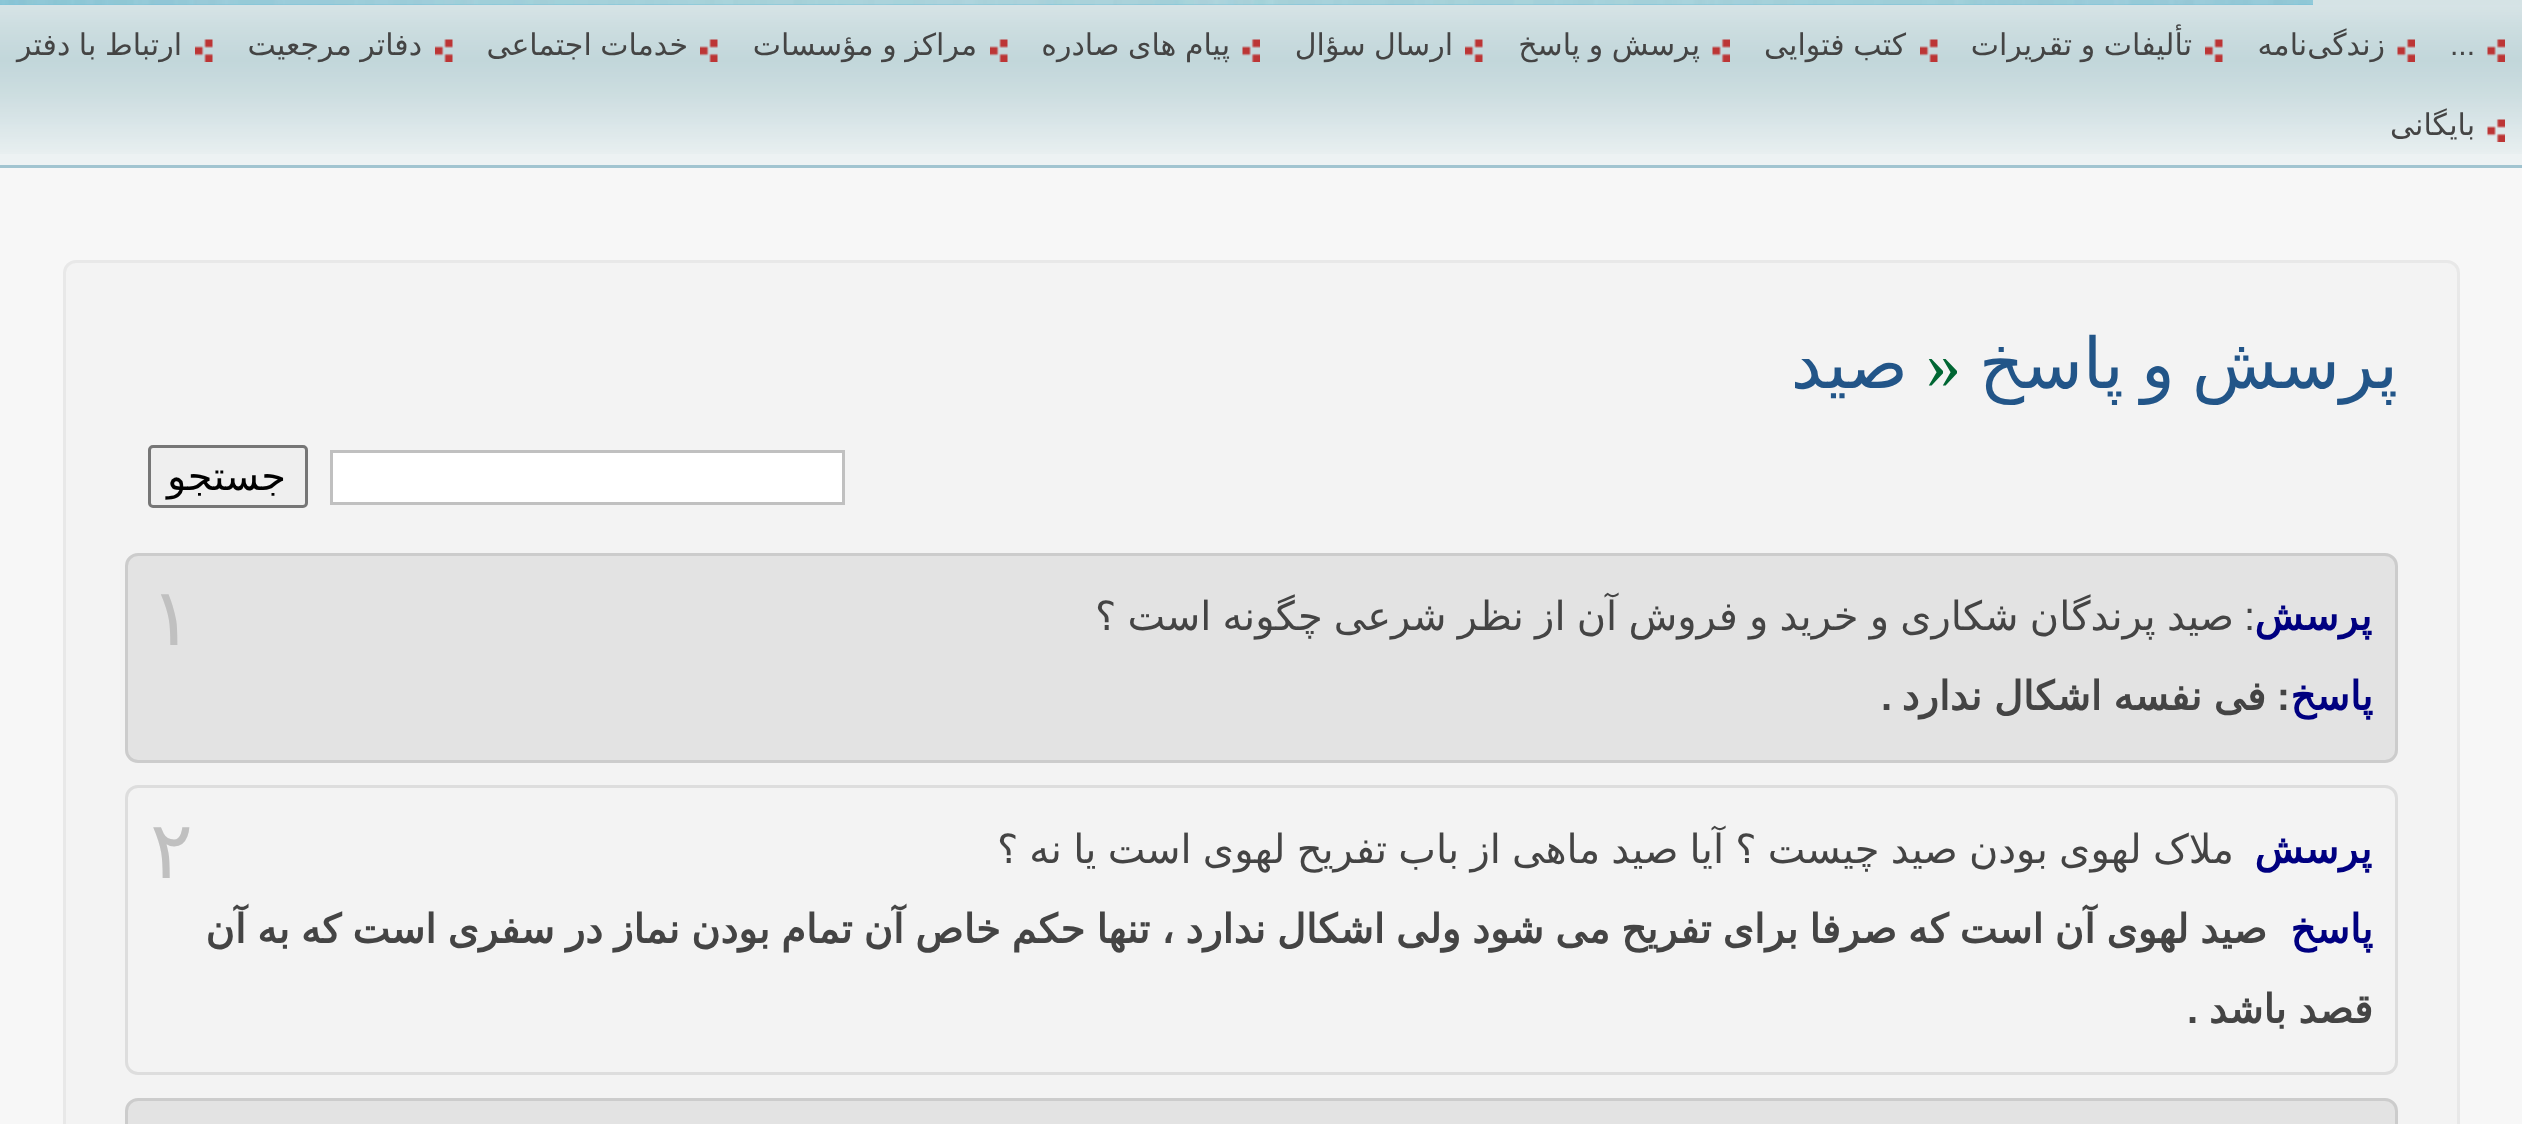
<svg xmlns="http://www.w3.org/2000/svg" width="2522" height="1124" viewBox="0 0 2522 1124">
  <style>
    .t1 { font: 30px Liberation Sans; fill: #444; }
    .t2 { font: 30px DejaVu Sans; direction: rtl; fill: #444; }
    .t3 { font: 70px DejaVu Sans; direction: rtl; fill: #258; }
    .t4 { font: 70px Liberation Serif; fill: #063; }
    .t5 { font: 40px DejaVu Sans; direction: rtl; fill: #000; }
    .t6 { font: bold 40px DejaVu Sans; direction: rtl; fill: #000080; }
    .t7 { font: 40px DejaVu Sans; direction: rtl; fill: #444; }
    .t8 { font: 40px Liberation Sans; direction: rtl; fill: #444; }
    .t9 { font: bold 40px Liberation Sans; direction: rtl; fill: #444; }
    .t10 { font: bold 40px DejaVu Sans; direction: rtl; fill: #444; }
    .t11 { font: 80px DejaVu Sans; fill: #c0c0c0; }
  </style>
  <rect width="100%" height="100%" fill="#fff"/>
  <image x="0" y="4" width="2313" height="1" href="images/1.png"/>
  <image x="0" y="4" width="2522" height="150" href="images/3.png"/>
  <image x="0" y="0" width="2313" height="5" href="images/2.png"/>
  <rect x="2313" y="0" width="209" height="5" fill="#d5e3e5"/>
  <rect x="0" y="154" width="2522" height="11" fill="#edf2f3"/>
  <rect x="0" y="165" width="2522" height="3" fill="#a1c4d0"/>
  <image x="2487" y="39" width="18" height="23" href="images/4.png"/>
  <text x="2450" y="55" class="t1">...</text>
  <image x="2397" y="39" width="18" height="23" href="images/5.png"/>
  <text x="2385" y="55" class="t2">زندگی‌نامه</text>
  <image x="2205" y="39" width="18" height="23" href="images/6.png"/>
  <text x="2192" y="55" word-spacing="-1" class="t2">تألیفات و تقریرات</text>
  <image x="1920" y="39" width="18" height="23" href="images/7.png"/>
  <text x="1906" y="55" word-spacing="-1" class="t2">کتب فتوایی</text>
  <image x="1712" y="39" width="18" height="23" href="images/4.png"/>
  <text x="1700" y="55" word-spacing="-1" class="t2">پرسش و پاسخ</text>
  <image x="1465" y="39" width="18" height="23" href="images/7.png"/>
  <text x="1453" y="55" word-spacing="-1" class="t2">ارسال سؤال</text>
  <image x="1242" y="39" width="18" height="23" href="images/4.png"/>
  <text x="1230" y="55" word-spacing="-1" class="t2">پیام های صادره</text>
  <image x="990" y="39" width="18" height="23" href="images/6.png"/>
  <text x="977" y="55" word-spacing="-1" class="t2">مراکز و مؤسسات</text>
  <image x="700" y="39" width="18" height="23" href="images/6.png"/>
  <text x="688" y="55" word-spacing="-1" class="t2">خدمات اجتماعی</text>
  <image x="435" y="39" width="18" height="23" href="images/6.png"/>
  <text x="422" y="55" word-spacing="-1" class="t2">دفاتر مرجعیت</text>
  <image x="195" y="39" width="18" height="23" href="images/7.png"/>
  <text x="182" y="55" word-spacing="-1" class="t2">ارتباط با دفتر</text>
  <image x="2487" y="119" width="18" height="23" href="images/8.png"/>
  <text x="2475" y="135" class="t2">بایگانی</text>
  <rect x="0" y="168" width="2522" height="956" fill="#f7f7f7"/>
  <rect x="64.5" y="261.5" width="2394" height="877" rx="11.5" fill="#f3f3f3" stroke="#e8e8e8" stroke-width="3"/>
  <text x="2398" y="388" word-spacing="-5" class="t3">پرسش و پاسخ</text>
  <text x="1926" y="388" class="t4">»</text>
  <text x="1908" y="388" class="t3">صید</text>
  <rect x="331.5" y="451.5" width="512" height="52" fill="#fff" stroke="#c0c0c0" stroke-width="3"/>
  <rect x="149.5" y="446.5" width="157" height="60" rx="3.5" fill="#efefef" stroke="#767676" stroke-width="3"/>
  <text x="286" y="490" class="t5">جستجو</text>
  <rect x="126.5" y="554.5" width="2270" height="207" rx="11.5" fill="#e3e3e3" stroke="#ccc" stroke-width="3"/>
  <text x="2372" y="630" class="t6">پرسش</text>
  <text x="2234" y="630" word-spacing="-1.5" class="t7">صید پرندگان شکاری و خرید و فروش آن از نظر شرعی چگونه است ؟</text>
  <text x="2255" y="630" class="t8">:</text>
  <text x="2373" y="710" class="t6">پاسخ</text>
  <text x="2290" y="710" class="t9">:</text>
  <text x="2266" y="710" word-spacing="-1" class="t10">فی نفسه اشکال ندارد</text>
  <text x="1892" y="710" class="t9">.</text>
  <text x="150" y="645" class="t11">۱</text>
  <rect x="126.5" y="786.5" width="2270" height="287" rx="11.5" fill="none" stroke="#ddd" stroke-width="3"/>
  <text x="2372" y="863" class="t6">پرسش</text>
  <text x="2234" y="863" word-spacing="-1.5" class="t7">ملاک لهوی بودن صید چیست ؟ آیا صید ماهی از باب تفریح لهوی است یا نه ؟</text>
  <text x="2373" y="943" class="t6">پاسخ</text>
  <text x="2267" y="943" word-spacing="-1.55" class="t10">صید لهوی آن است که صرفا برای تفریح می شود ولی اشکال ندارد ، تنها حکم خاص آن تمام بودن نماز در سفری است که به آن</text>
  <text x="2373" y="1023" word-spacing="-1" class="t10">قصد باشد</text>
  <text x="2198" y="1023" class="t9">.</text>
  <text x="150" y="878" class="t11">۲</text>
  <rect x="126.5" y="1099.5" width="2270" height="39" rx="11.5" fill="#e3e3e3" stroke="#ccc" stroke-width="3"/>
</svg>
